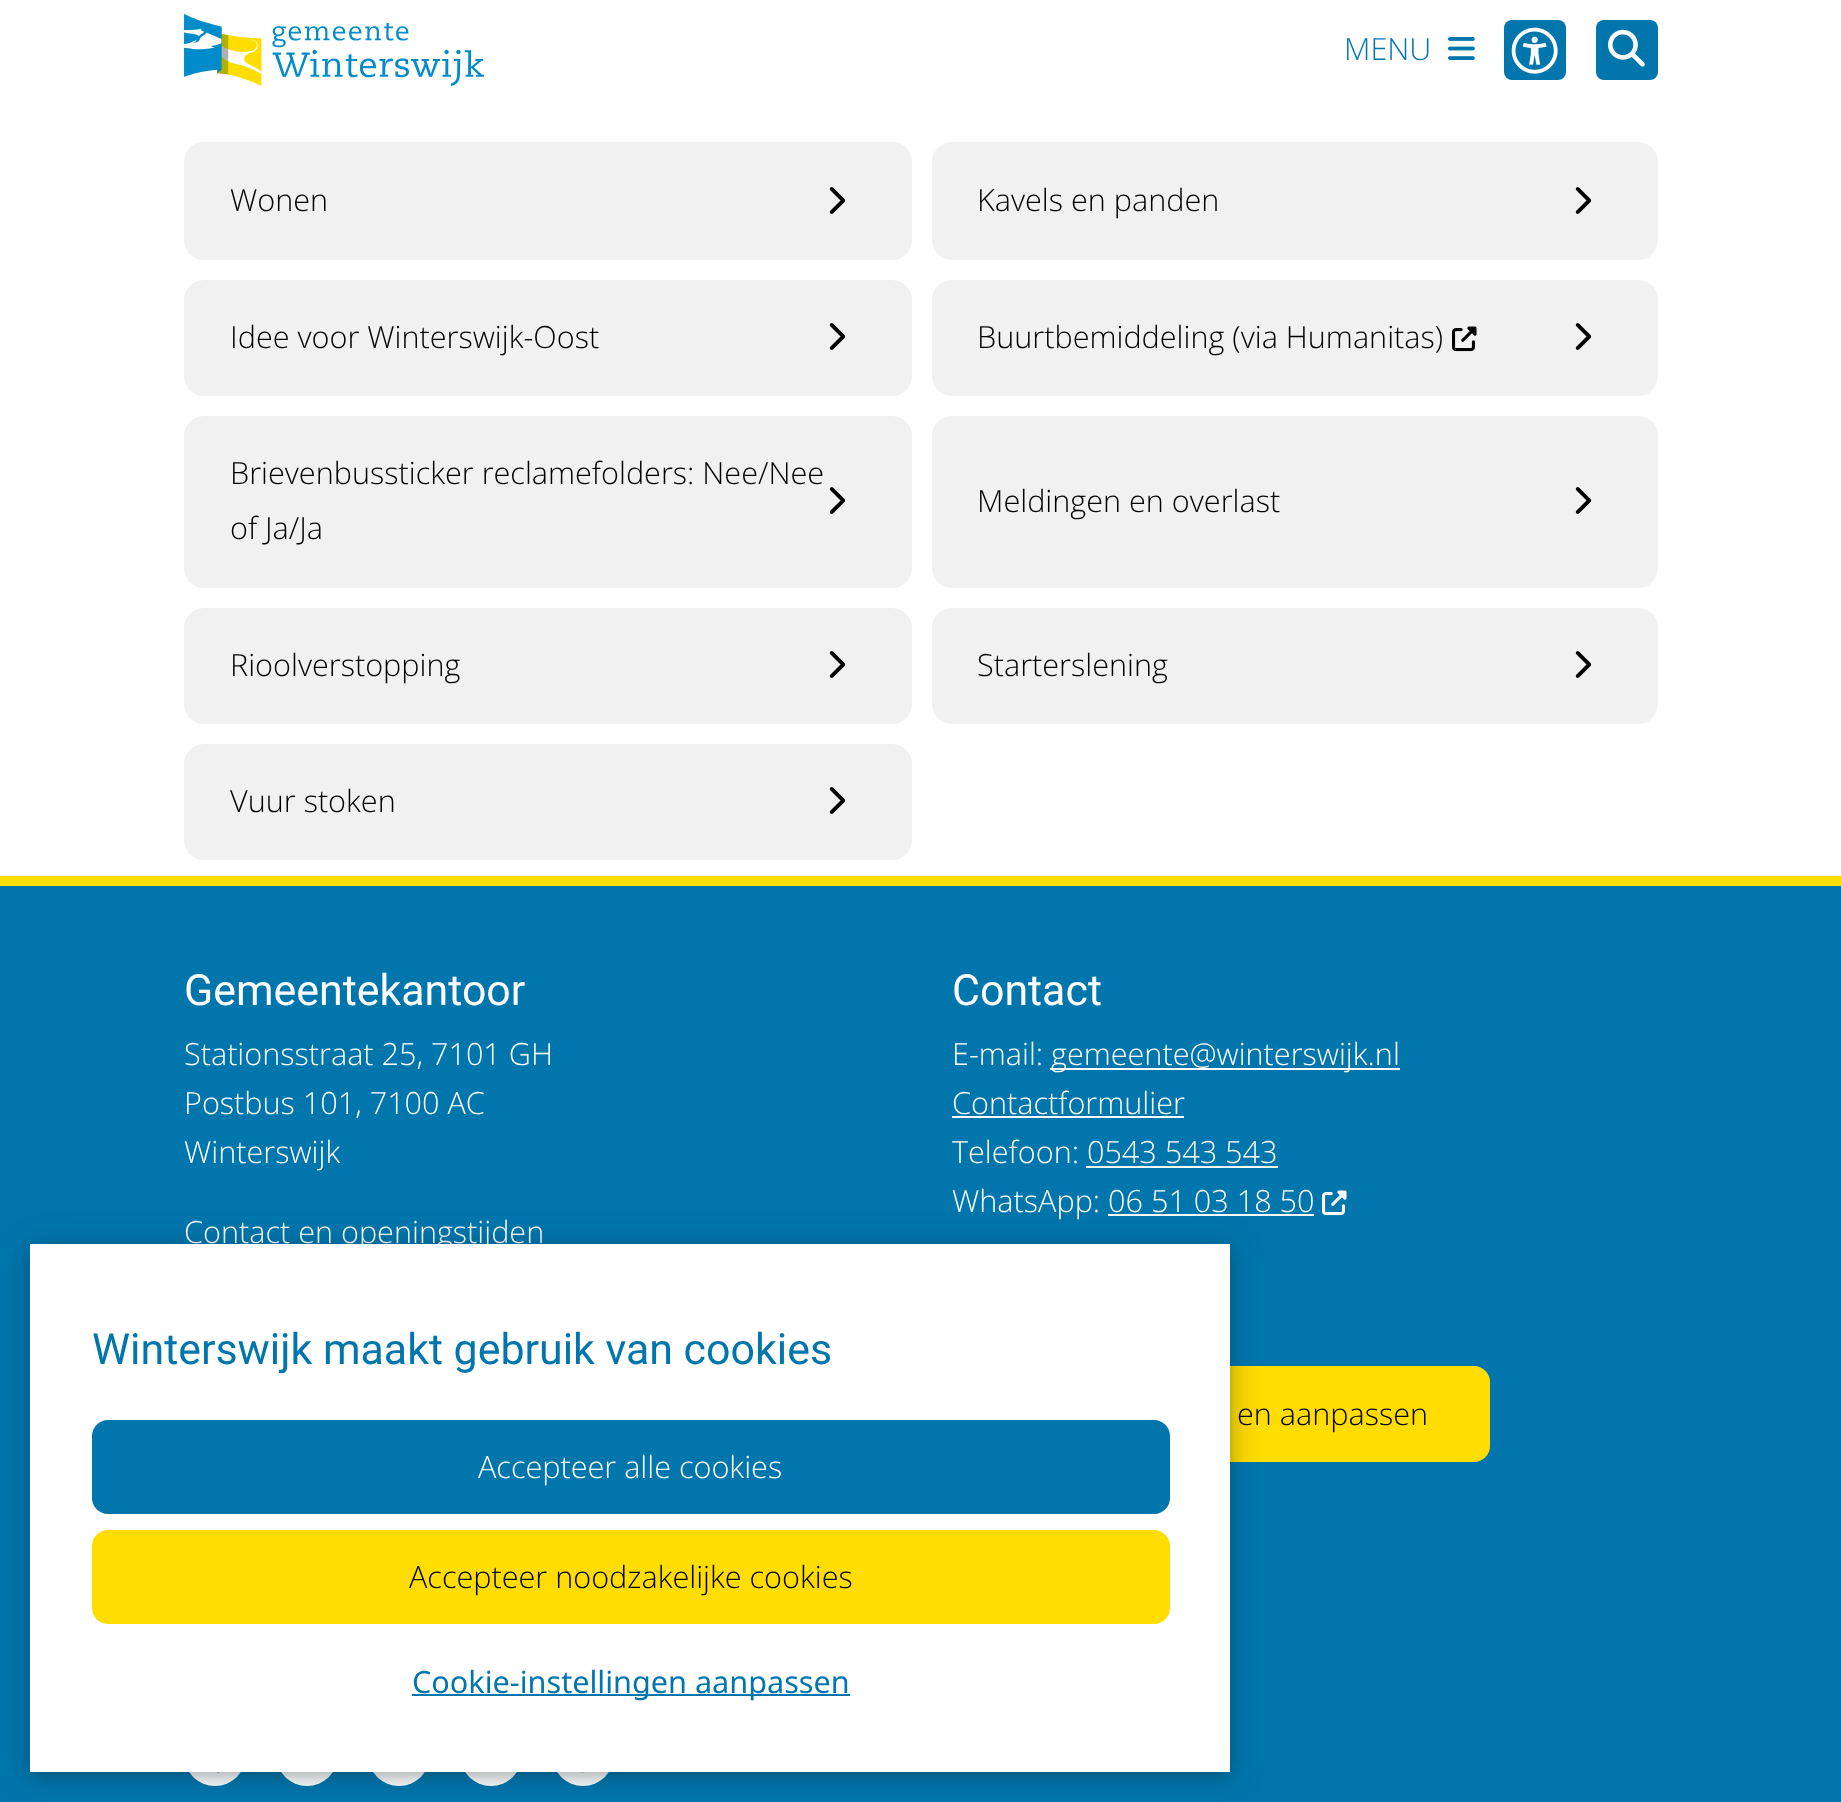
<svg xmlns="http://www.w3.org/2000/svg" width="1841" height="1802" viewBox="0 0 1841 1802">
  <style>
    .t1 { font: 300 30.6px Open Sans; fill: #0076ad; }
    .t2 { font: 300 30.6px Open Sans; fill: #000; }
    .t3 { font: 42.9px Roboto; fill: #fff; }
    .t4 { font: 300 30.6px Open Sans; fill: #fff; }
    .t5 { font: 42.9px Roboto; fill: #0076ad; }
    .t6 { font: 30.6px Noto Sans; fill: #0076ad; }
  </style>
  <rect width="100%" height="100%" fill="#fff"/>
  <image x="184" y="14" width="300" height="72" href="images/1.png"/>
  <text x="1344" y="60" class="t1">MENU</text>
  <image x="1448" y="37" width="27" height="23" href="images/2.png"/>
  <rect x="1504" y="20" width="62" height="60" rx="8" fill="#0076ad"/>
  <image x="1511" y="27" width="47" height="47" href="images/3.png"/>
  <rect x="1596" y="20" width="62" height="60" rx="8" fill="#0076ad"/>
  <image x="1608" y="29" width="37" height="38" href="images/4.png"/>
  <rect x="184" y="142" width="728" height="118" rx="20" fill="#f1f1f1"/>
  <text x="230" y="211" class="t2">Wonen</text>
  <image x="829" y="187" width="17" height="27" href="images/5.png"/>
  <rect x="932" y="142" width="726" height="118" rx="20" fill="#f1f1f1"/>
  <text x="977" y="211" class="t2">Kavels en panden</text>
  <image x="1575" y="187" width="17" height="27" href="images/5.png"/>
  <rect x="184" y="280" width="728" height="116" rx="20" fill="#f1f1f1"/>
  <text x="230" y="348" class="t2">Idee voor Winterswijk-Oost</text>
  <image x="829" y="323" width="17" height="27" href="images/5.png"/>
  <rect x="932" y="280" width="726" height="116" rx="20" fill="#f1f1f1"/>
  <text x="977" y="348" class="t2">Buurtbemiddeling (via Humanitas)</text>
  <image x="1452" y="326" width="25" height="26" href="images/6.png"/>
  <image x="1575" y="323" width="17" height="27" href="images/5.png"/>
  <rect x="184" y="416" width="728" height="172" rx="20" fill="#f1f1f1"/>
  <text x="230" y="484" class="t2">Brievenbussticker reclamefolders: Nee/Nee</text>
  <text x="230" y="539" class="t2">of Ja/Ja</text>
  <image x="829" y="487" width="17" height="27" href="images/5.png"/>
  <rect x="932" y="416" width="726" height="172" rx="20" fill="#f1f1f1"/>
  <text x="977" y="512" class="t2">Meldingen en overlast</text>
  <image x="1575" y="487" width="17" height="27" href="images/5.png"/>
  <rect x="184" y="608" width="728" height="116" rx="20" fill="#f1f1f1"/>
  <text x="230" y="676" class="t2">Rioolverstopping</text>
  <image x="829" y="651" width="17" height="27" href="images/5.png"/>
  <rect x="932" y="608" width="726" height="116" rx="20" fill="#f1f1f1"/>
  <text x="977" y="676" class="t2">Starterslening</text>
  <image x="1575" y="651" width="17" height="27" href="images/5.png"/>
  <rect x="184" y="744" width="728" height="116" rx="20" fill="#f1f1f1"/>
  <text x="230" y="812" class="t2">Vuur stoken</text>
  <image x="829" y="787" width="17" height="27" href="images/5.png"/>
  <rect x="0" y="876" width="1841" height="10" fill="#fd0"/>
  <rect x="0" y="886" width="1841" height="916" fill="#0076ad"/>
  <text x="184" y="1005" class="t3">Gemeentekantoor</text>
  <text x="184" y="1065" class="t4">Stationsstraat 25, 7101 GH</text>
  <text x="184" y="1114" class="t4">Postbus 101, 7100 AC</text>
  <text x="184" y="1163" class="t4">Winterswijk</text>
  <text x="184" y="1243" class="t4">Contact en openingstijden</text>
  <text x="952" y="1005" class="t3">Contact</text>
  <text x="952" y="1065" class="t4">E-mail:</text>
  <rect x="1050" y="1068" width="350" height="2" fill="#fff"/>
  <text x="1051" y="1065" class="t4">gemeente@winterswijk.nl</text>
  <text x="952" y="1114" class="t4">Contactformulier</text>
  <rect x="952" y="1116" width="232" height="2" fill="#fff"/>
  <text x="952" y="1163" class="t4">Telefoon: 0543 543 543</text>
  <rect x="1086" y="1166" width="192" height="2" fill="#fff"/>
  <text x="952" y="1212" class="t4">WhatsApp: 06 51 03 18 50</text>
  <rect x="1108" y="1214" width="206" height="2" fill="#fff"/>
  <image x="1322" y="1190" width="25" height="26" href="images/7.png"/>
  <rect x="952" y="1366" width="538" height="96" rx="16" fill="#fd0"/>
  <text x="1237" y="1425" class="t2">en aanpassen</text>
  <circle cx="215" cy="1755" r="31" fill="#fff"/>
  <image x="210" y="1772" width="10" height="1" href="images/8.png"/>
  <circle cx="307" cy="1755" r="31" fill="#fff"/>
  <circle cx="399" cy="1755" r="31" fill="#fff"/>
  <circle cx="491" cy="1755" r="31" fill="#fff"/>
  <circle cx="583" cy="1755" r="31" fill="#fff"/>
  <image x="580" y="1772" width="5" height="1" href="images/9.png"/>
  <rect x="30" y="1248" width="1200" height="528" fill="#0e1e2552" filter="blur(16px)"/>
  <rect x="30" y="1248" width="1200" height="528" fill="#0e1e251f" filter="blur(4px)"/>
  <rect x="30" y="1244" width="1200" height="528" fill="#fff"/>
  <text x="92" y="1364" class="t5">Winterswijk maakt gebruik van cookies</text>
  <rect x="92" y="1420" width="1078" height="94" rx="16" fill="#0076ad"/>
  <text x="478" y="1478" class="t4">Accepteer alle cookies</text>
  <rect x="92" y="1530" width="1078" height="94" rx="16" fill="#fd0"/>
  <text x="409" y="1588" class="t2">Accepteer noodzakelijke cookies</text>
  <rect x="412" y="1694" width="438" height="2" fill="#0076ad"/>
  <text x="412" y="1693" class="t6">Cookie-instellingen aanpassen</text>
</svg>
